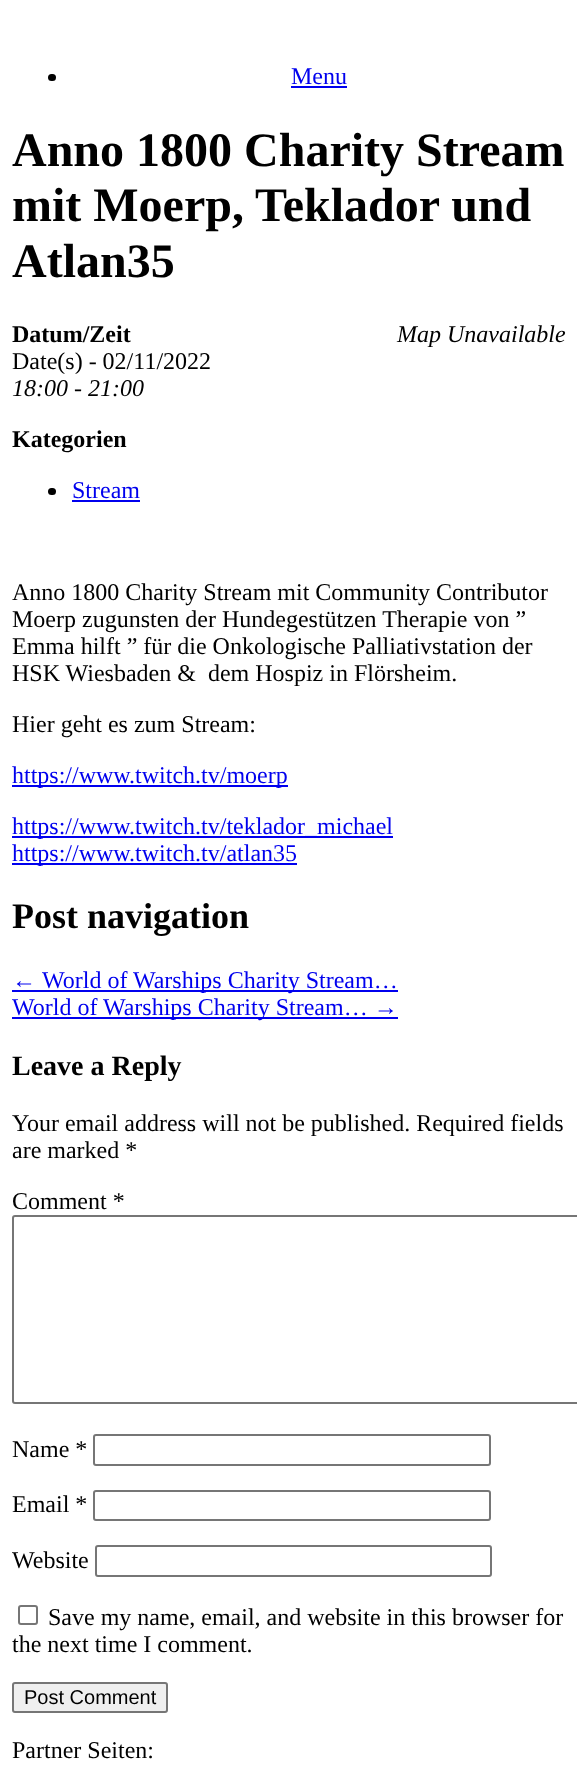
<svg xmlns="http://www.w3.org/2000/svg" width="577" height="1766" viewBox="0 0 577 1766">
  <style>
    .t1 { font: 24px Liberation Serif; fill: #00e; }
    .t2 { font: bold 48px Liberation Serif; fill: #000; }
    .t3 { font: bold 24px Liberation Serif; fill: #000; }
    .t4 { font: 24px Liberation Serif; fill: #000; }
    .t5 { font: italic 24px Liberation Serif; fill: #000; }
    .t6 { font: bold 36px Liberation Serif; fill: #000; }
    .t7 { font: bold 28px Liberation Serif; fill: #000; }
    .t8 { font: 20px Liberation Sans; fill: #000; }
  </style>
  <rect width="100%" height="100%" fill="#fff"/>
  <rect x="48" y="74" width="8" height="7" rx="3.5" fill="#000"/>
  <text x="291" y="84" class="t1">Menu</text>
  <rect x="291" y="86" width="56" height="2" fill="#00e"/>
  <text x="12" y="166" class="t2">Anno 1800 Charity Stream</text>
  <text x="12" y="221" class="t2">mit Moerp, Teklador und</text>
  <text x="12" y="277" class="t2">Atlan35</text>
  <text x="12" y="342" class="t3">Datum/Zeit</text>
  <text x="12" y="369" class="t4">Date(s) - 02/11/2022</text>
  <text x="12" y="396" class="t5">18:00 - 21:00</text>
  <text x="397" y="342" class="t5">Map Unavailable</text>
  <text x="12" y="447" class="t3">Kategorien</text>
  <rect x="48" y="488" width="8" height="7" rx="3.5" fill="#000"/>
  <text x="72" y="498" class="t1">Stream</text>
  <rect x="72" y="500" width="68" height="2" fill="#00e"/>
  <text x="12" y="600" class="t4">Anno 1800 Charity Stream mit Community Contributor</text>
  <text x="12" y="627" class="t4">Moerp zugunsten der Hundegestützen Therapie von ”</text>
  <text x="12" y="654" class="t4">Emma hilft ” für die Onkologische Palliativstation der</text>
  <text x="12" y="681" class="t4" xml:space="preserve">HSK Wiesbaden &amp;  dem Hospiz in Flörsheim.</text>
  <text x="12" y="732" class="t4">Hier geht es zum Stream:</text>
  <rect x="12" y="785" width="276" height="2" fill="#00e"/>
  <text x="12" y="783" class="t1">https://www.twitch.tv/moerp</text>
  <rect x="12" y="836" width="381" height="2" fill="#00e"/>
  <text x="12" y="834" class="t1">https://www.twitch.tv/teklador_michael</text>
  <rect x="12" y="863" width="285" height="2" fill="#00e"/>
  <text x="12" y="861" class="t1">https://www.twitch.tv/atlan35</text>
  <text x="12" y="928" class="t6">Post navigation</text>
  <text x="12" y="988" class="t1">←</text>
  <rect x="12" y="990" width="386" height="2" fill="#00e"/>
  <text x="42" y="988" class="t1">World of Warships Charity Stream…</text>
  <rect x="12" y="1017" width="386" height="2" fill="#00e"/>
  <text x="12" y="1015" class="t1">World of Warships Charity Stream… →</text>
  <text x="12" y="1075" class="t7">Leave a Reply</text>
  <text x="12" y="1131" class="t4">Your email address will not be published. Required fields</text>
  <text x="12" y="1158" class="t4">are marked *</text>
  <text x="12" y="1209" class="t4">Comment *</text>
  <rect x="13" y="1216" width="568" height="187" rx="2" fill="none" stroke="#767676" stroke-width="2"/>
  <text x="12" y="1457" class="t4">Name *</text>
  <rect x="94" y="1435" width="396" height="30" rx="2" fill="none" stroke="#767676" stroke-width="2"/>
  <text x="12" y="1512" class="t4">Email *</text>
  <rect x="94" y="1491" width="396" height="29" rx="2" fill="none" stroke="#767676" stroke-width="2"/>
  <text x="12" y="1568" class="t4">Website</text>
  <rect x="96" y="1546" width="395" height="30" rx="2" fill="none" stroke="#767676" stroke-width="2"/>
  <rect x="19" y="1606" width="18" height="18" rx="2" fill="none" stroke="#767676" stroke-width="2"/>
  <text x="48" y="1625" class="t4">Save my name, email, and website in this browser for</text>
  <text x="12" y="1652" class="t4">the next time I comment.</text>
  <rect x="13" y="1683" width="154" height="29" rx="2" fill="#efefef" stroke="#767676" stroke-width="2"/>
  <text x="24" y="1704" class="t8">Post Comment</text>
  <text x="12" y="1758" class="t4">Partner Seiten:</text>
</svg>
